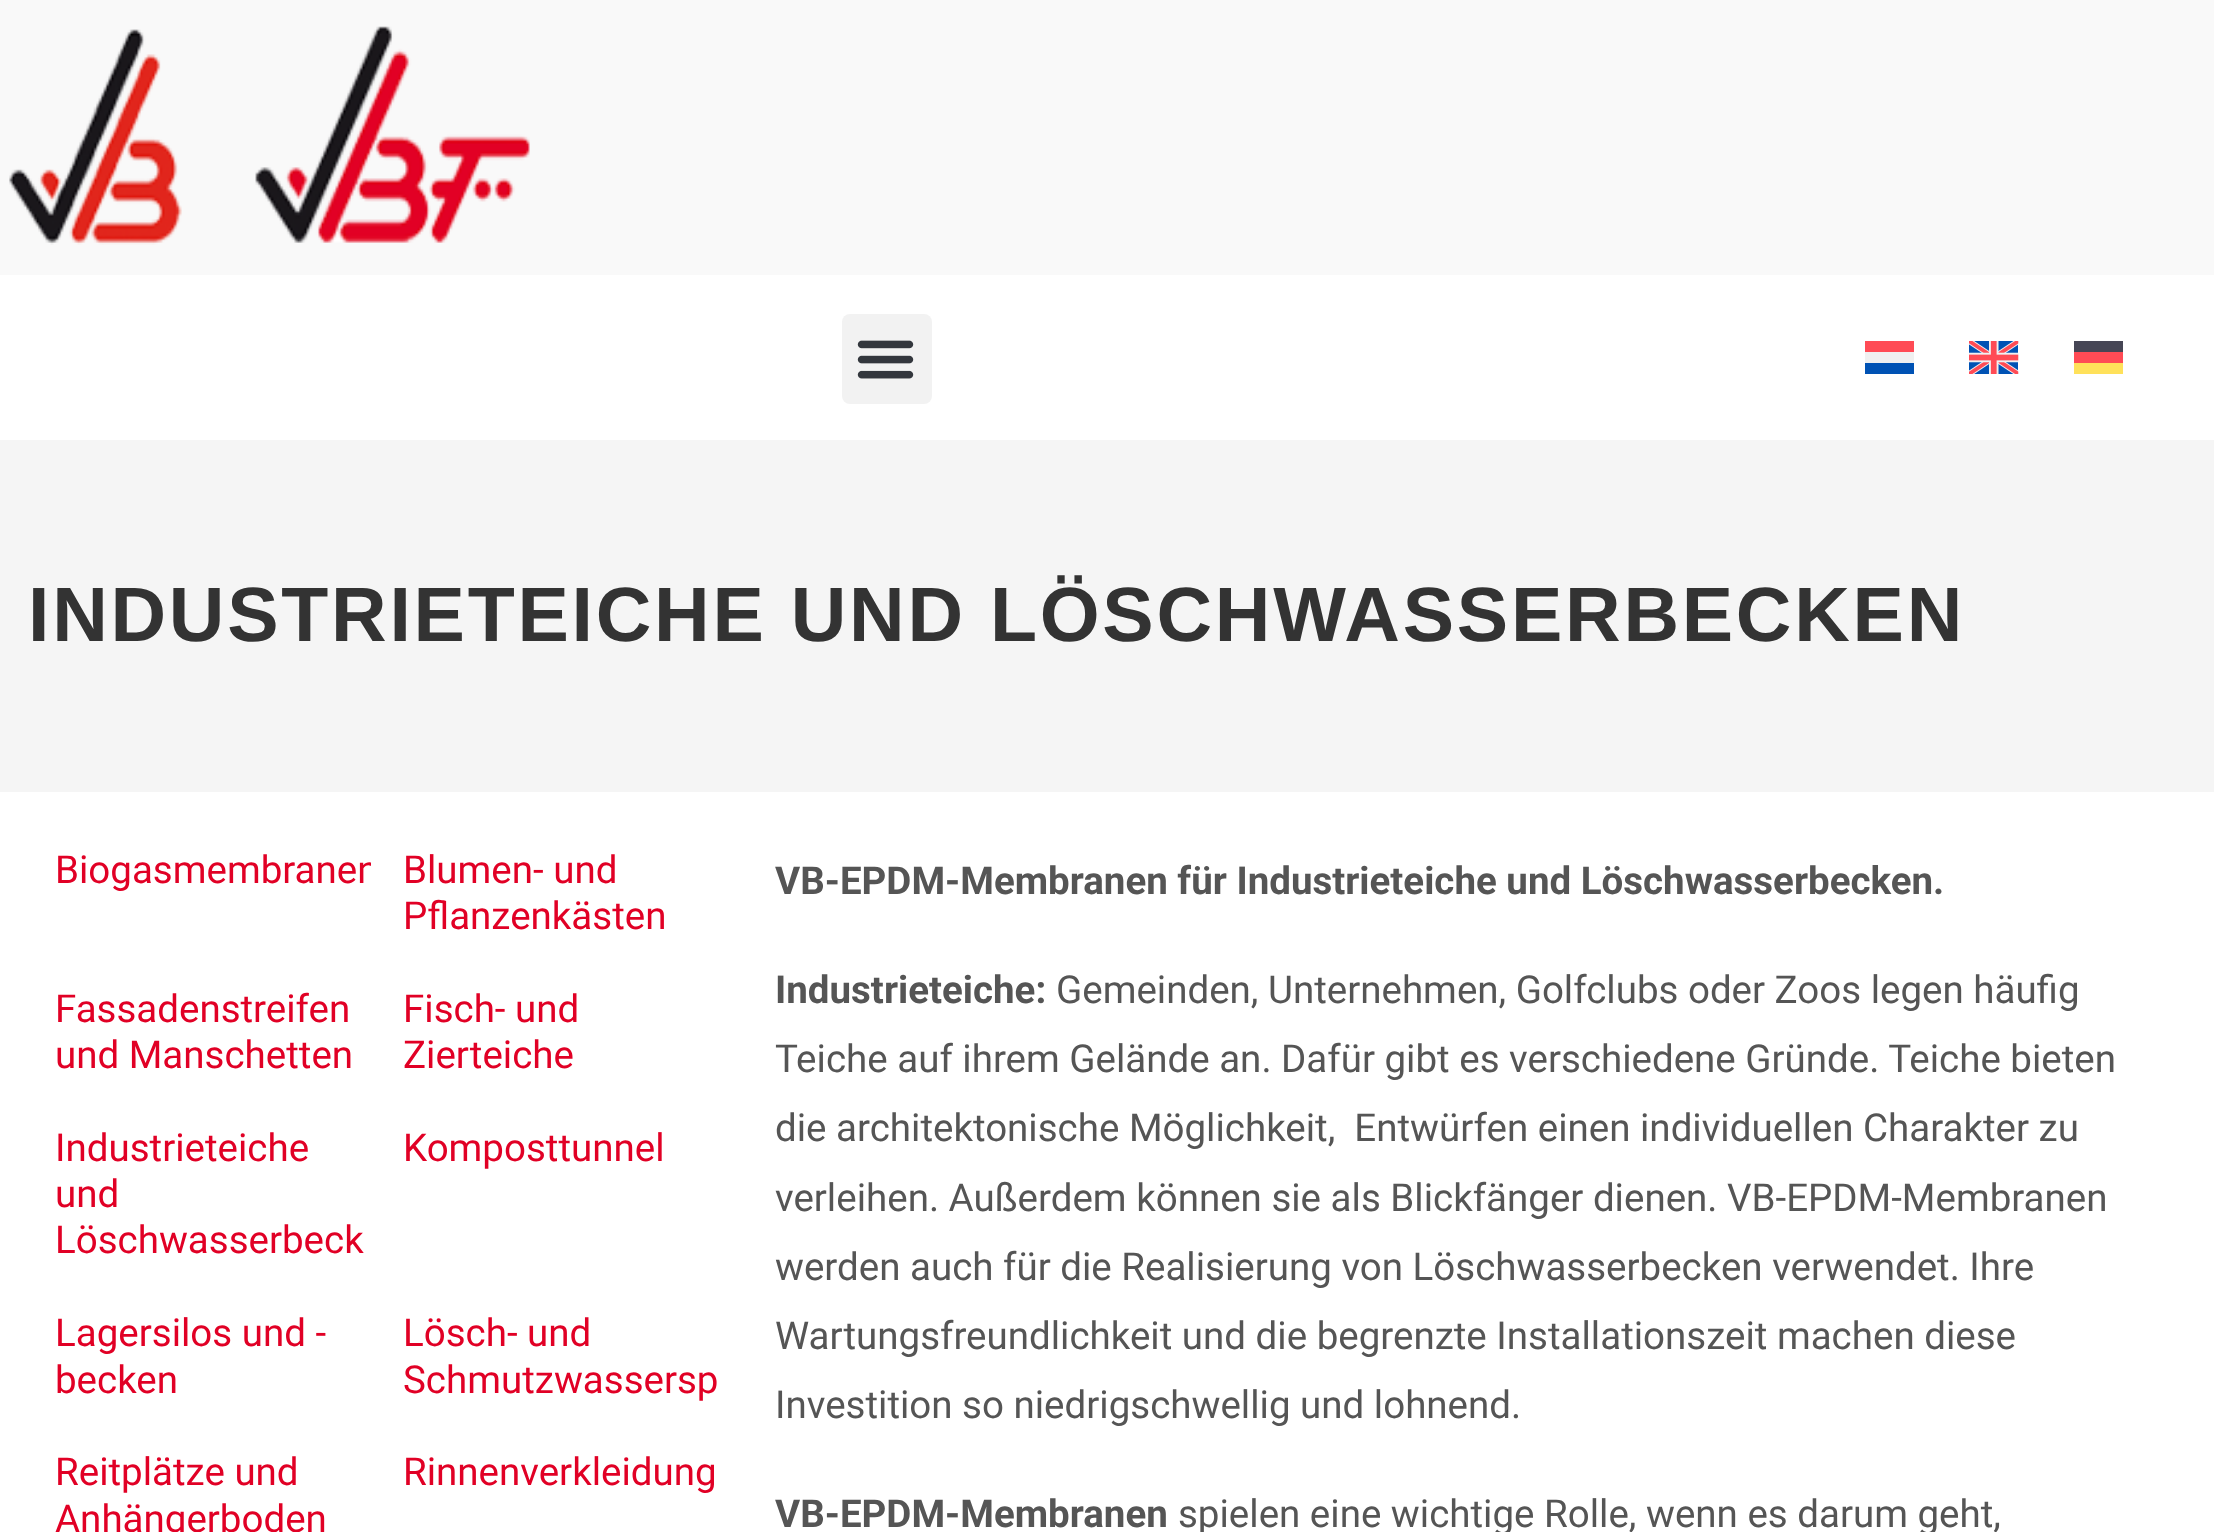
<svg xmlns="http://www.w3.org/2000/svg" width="2214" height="1532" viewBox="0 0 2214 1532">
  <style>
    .t1 { font: bold 77px Liberation Sans; letter-spacing: 2.75px; fill: #333; }
    .t2 { font: 38.5px Roboto; fill: #e10025; }
    .t3 { font: bold 38.5px Roboto; fill: #555; }
    .t4 { font: 38.5px Roboto; fill: #555; }
  </style>
  <defs>
    <clipPath id="clip1"><rect x="55" y="847" width="316" height="94"/></clipPath>
  </defs>
  <rect width="100%" height="100%" fill="#fff"/>
  <rect x="0" y="0" width="2214" height="275" fill="#f9f9f9"/>
  <image x="9" y="26" width="521" height="219" href="images/1.png"/>
  <rect x="842" y="314" width="90" height="90" rx="8" fill="#f2f2f2"/>
  <image x="857" y="340" width="57" height="39" href="images/2.png"/>
  <rect x="1865" y="341" width="49" height="11" fill="#ff4b55"/>
  <rect x="1865" y="352" width="49" height="11" fill="#f0f0f0"/>
  <rect x="1865" y="363" width="49" height="11" fill="#0052b4"/>
  <image x="1969" y="341" width="50" height="33" href="images/3.png"/>
  <rect x="2074" y="341" width="49" height="11" fill="#464655"/>
  <rect x="2074" y="352" width="49" height="11" fill="#ff4b55"/>
  <rect x="2074" y="363" width="49" height="11" fill="#ffe15a"/>
  <rect x="0" y="440" width="2214" height="352" fill="#f5f5f5"/>
  <text x="28" y="641" class="t1">INDUSTRIETEICHE UND LÖSCHWASSERBECKEN</text>
  <g clip-path="url(#clip1)">
    <text x="55" y="883" class="t2">Biogasmembranen</text>
  </g>
  <text x="403" y="883" class="t2">Blumen- und</text>
  <text x="403" y="929" class="t2">Pflanzenkästen</text>
  <text x="55" y="1022" class="t2">Fassadenstreifen</text>
  <text x="55" y="1068" class="t2">und Manschetten</text>
  <text x="403" y="1022" class="t2">Fisch- und</text>
  <text x="403" y="1068" class="t2">Zierteiche</text>
  <text x="55" y="1161" class="t2">Industrieteiche</text>
  <text x="55" y="1207" class="t2">und</text>
  <text x="55" y="1253" class="t2">Löschwasserbeck</text>
  <text x="403" y="1161" class="t2">Komposttunnel</text>
  <text x="55" y="1346" class="t2">Lagersilos und -</text>
  <text x="55" y="1393" class="t2">becken</text>
  <text x="403" y="1346" class="t2">Lösch- und</text>
  <text x="403" y="1393" class="t2">Schmutzwassersp</text>
  <text x="55" y="1485" class="t2">Reitplätze und</text>
  <text x="55" y="1532" class="t2">Anhängerboden</text>
  <text x="403" y="1485" class="t2">Rinnenverkleidung</text>
  <text x="775" y="894" class="t3">VB-EPDM-Membranen für Industrieteiche und Löschwasserbecken.</text>
  <text x="775" y="1003" class="t3">Industrieteiche:</text>
  <text x="1056" y="1003" class="t4">Gemeinden, Unternehmen, Golfclubs oder Zoos legen häufig</text>
  <text x="775" y="1072" class="t4">Teiche auf ihrem Gelände an. Dafür gibt es verschiedene Gründe. Teiche bieten</text>
  <text x="775" y="1141" class="t4" xml:space="preserve">die architektonische Möglichkeit,  Entwürfen einen individuellen Charakter zu</text>
  <text x="775" y="1211" class="t4">verleihen. Außerdem können sie als Blickfänger dienen. VB-EPDM-Membranen</text>
  <text x="775" y="1280" class="t4">werden auch für die Realisierung von Löschwasserbecken verwendet. Ihre</text>
  <text x="775" y="1349" class="t4">Wartungsfreundlichkeit und die begrenzte Installationszeit machen diese</text>
  <text x="775" y="1418" class="t4">Investition so niedrigschwellig und lohnend.</text>
  <text x="775" y="1527" class="t3">VB-EPDM-Membranen</text>
  <text x="1178" y="1527" class="t4">spielen eine wichtige Rolle, wenn es darum geht,</text>
</svg>
